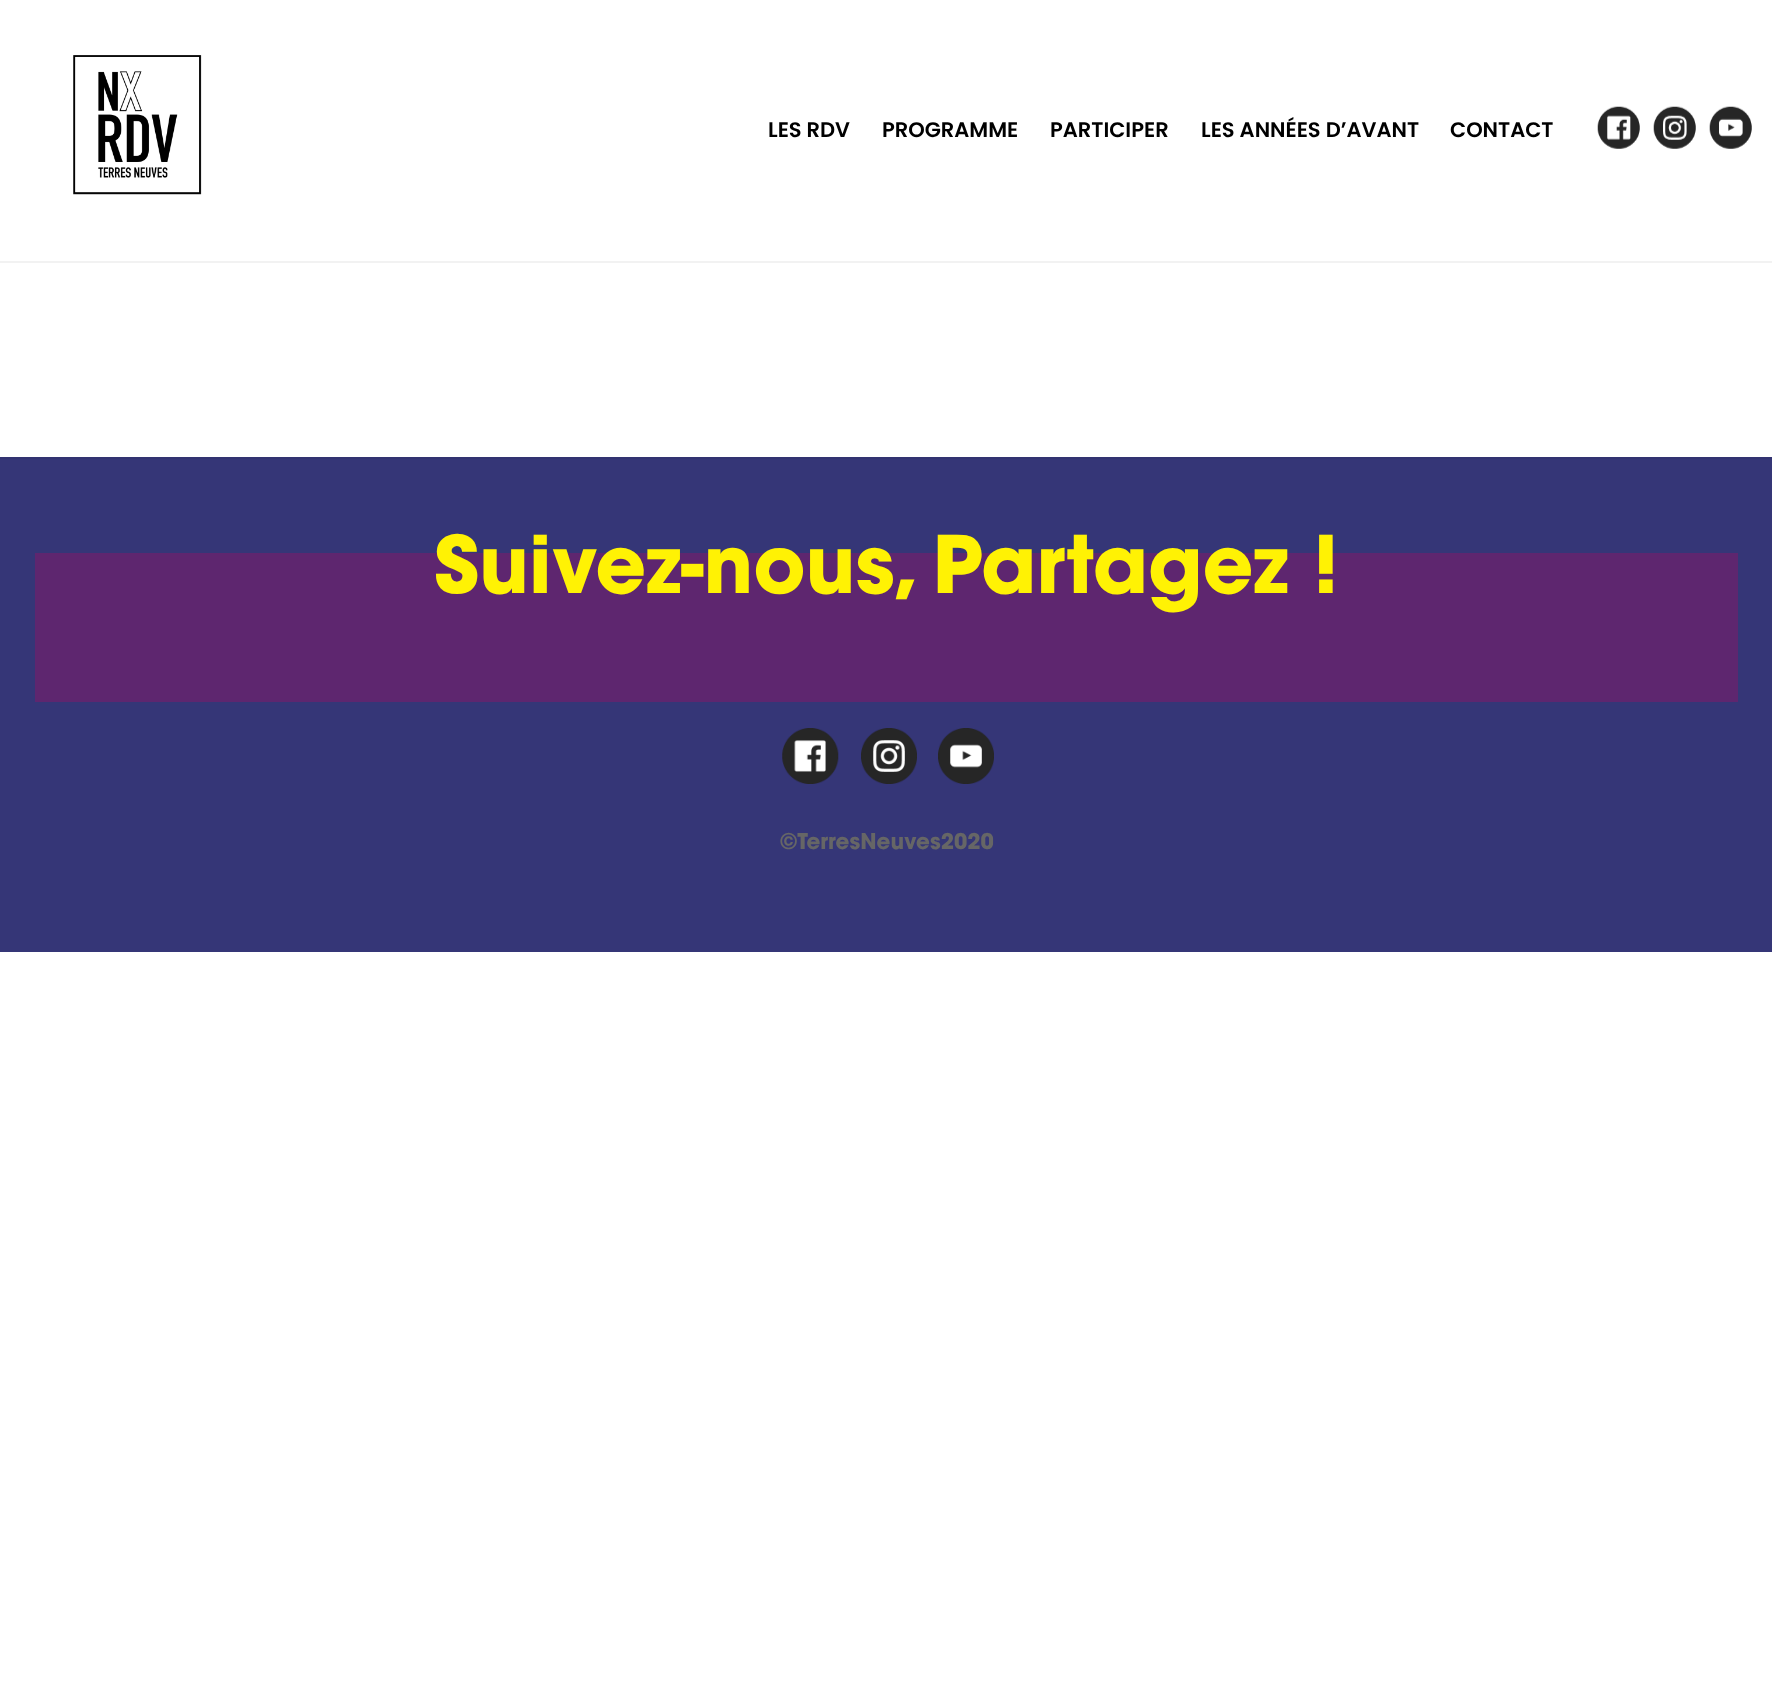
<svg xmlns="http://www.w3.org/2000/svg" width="1772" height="1681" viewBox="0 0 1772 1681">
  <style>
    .t1 { font: 600 21px Poppins; fill: #000; }
    .t2 { font: bold 78.75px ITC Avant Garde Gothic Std; fill: #fff204; }
    .t3 { font: bold 21.5px ITC Avant Garde Gothic Std; fill: #666; }
  </style>
  <rect width="100%" height="100%" fill="#fff"/>
  <rect x="0" y="261" width="1772" height="2" fill="#f2f2f2"/>
  <image x="73" y="55" width="129" height="140" href="images/1.png"/>
  <text x="768" y="137" class="t1">LES RDV</text>
  <text x="882" y="137" class="t1">PROGRAMME</text>
  <text x="1050" y="137" class="t1">PARTICIPER</text>
  <text x="1201" y="137" class="t1">LES ANNÉES D’AVANT</text>
  <text x="1450" y="137" class="t1">CONTACT</text>
  <image x="1597" y="106" width="43" height="43" href="images/2.png"/>
  <image x="1653" y="106" width="43" height="43" href="images/3.png"/>
  <image x="1709" y="106" width="43" height="43" href="images/4.png"/>
  <rect x="0" y="459" width="1772" height="493" fill="#353677"/>
  <rect x="0" y="457" width="1772" height="2" fill="#323371"/>
  <rect x="35" y="553" width="1703" height="149" fill="#5e266f"/>
  <text x="434" y="593" class="t2">Suivez-nous, Partagez !</text>
  <image x="782" y="728" width="57" height="56" href="images/5.png"/>
  <image x="861" y="728" width="56" height="56" href="images/6.png"/>
  <image x="938" y="728" width="56" height="56" href="images/7.png"/>
  <text x="780" y="849" class="t3">©TerresNeuves2020</text>
</svg>
